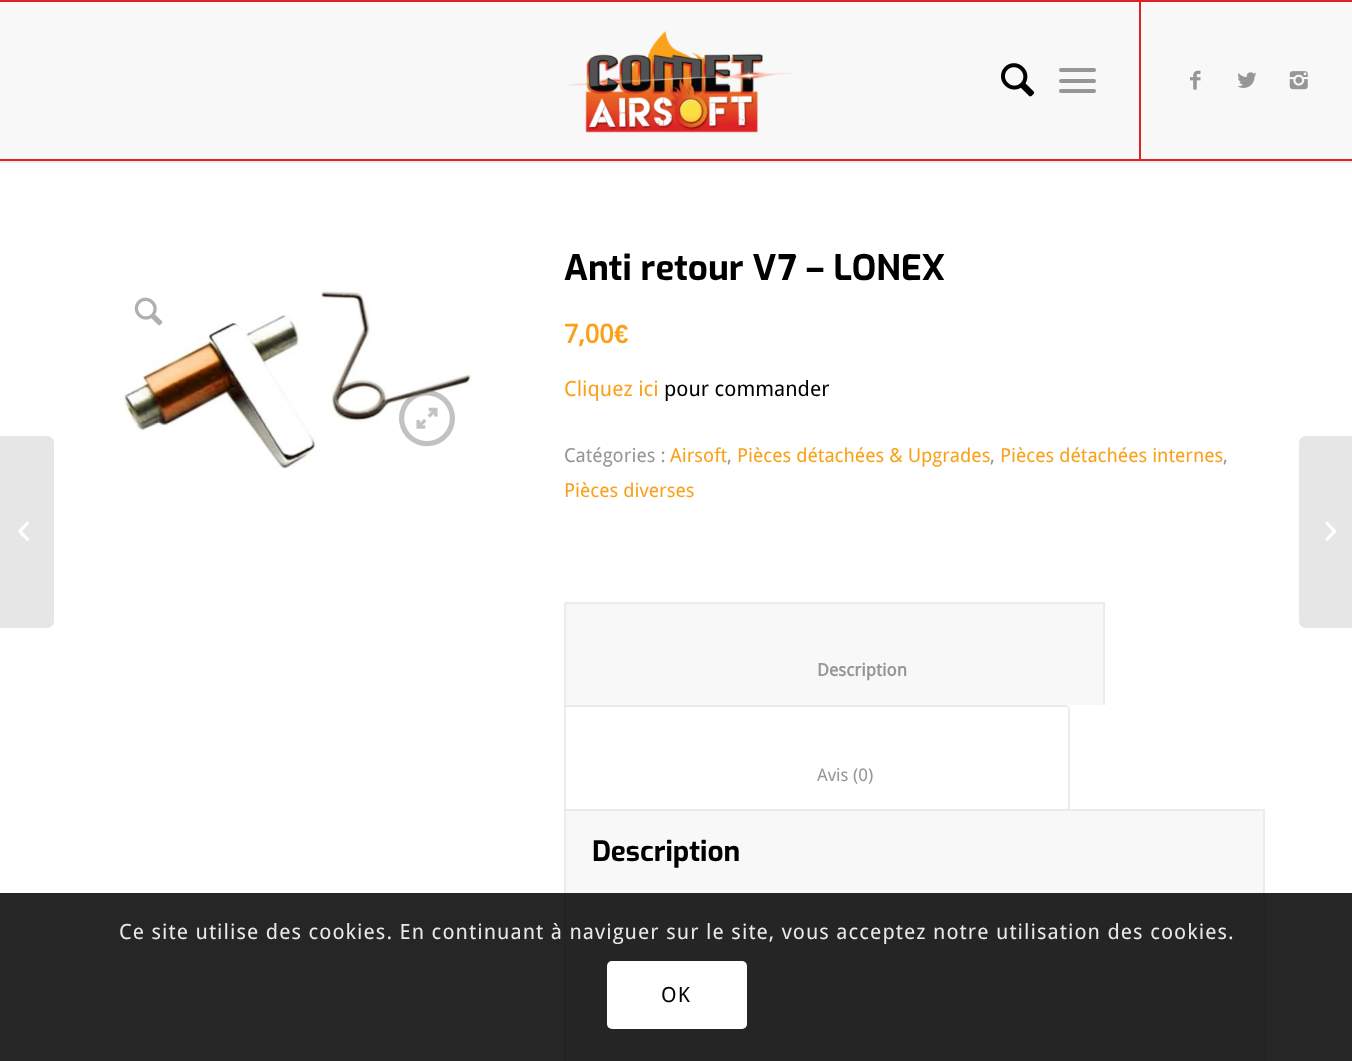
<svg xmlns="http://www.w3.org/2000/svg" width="1352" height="1061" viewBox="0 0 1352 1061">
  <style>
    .t1 { font: bold 35px Exo; fill: #000; }
    .t2 { font: bold 26px Droid Sans; fill: #faa11a; }
    .t3 { font: bold 26px Liberation Sans; fill: #faa11a; }
    .t4 { font: 21px Droid Sans; fill: #faa11a; }
    .t5 { font: 21px Droid Sans; fill: #000; }
    .t6 { font: 19.25px Droid Sans; fill: #969696; }
    .t7 { font: 19.25px Droid Sans; fill: #faa11a; }
    .t8 { font: bold 17.5px Droid Sans; fill: #969696; }
    .t9 { font: 17.5px Droid Sans; fill: #969696; }
    .t10 { font: bold 28px Exo; fill: #000; }
    .t11 { font: 21px Droid Sans; letter-spacing: 1.05px; fill: #e9e9e9; }
    .t12 { font: 21px Droid Sans; letter-spacing: 1.05px; fill: #000; }
  </style>
  <rect width="100%" height="100%" fill="#fff"/>
  <rect x="0" y="0" width="1352" height="2" fill="#de2326"/>
  <rect x="0" y="159" width="1352" height="2" fill="#de2326"/>
  <rect x="0" y="2" width="1352" height="157" fill="#f8f8f8"/>
  <image x="565" y="31" width="227" height="102" href="images/1.png"/>
  <rect x="1139" y="2" width="2" height="157" fill="#de2326"/>
  <image x="1001" y="63" width="34" height="34" href="images/2.png"/>
  <rect x="1059" y="79" width="37" height="4" rx="2" fill="#969696"/>
  <rect x="1059" y="68" width="37" height="4" rx="2" fill="#969696"/>
  <rect x="1059" y="89" width="37" height="4" rx="2" fill="#969696"/>
  <image x="1190" y="70" width="11" height="20" href="images/3.png"/>
  <image x="1237" y="72" width="20" height="16" href="images/4.png"/>
  <image x="1289" y="71" width="19" height="19" href="images/5.png"/>
  <path d="M0 436H47C51 436 54 439 54 443V621C54 625 51 628 47 628H0Z" fill="#e6e6e6"/>
  <image x="18" y="521" width="11" height="20" href="images/6.png"/>
  <rect x="0" y="161" width="1352" height="2" fill="#ebebeb"/>
  <image x="123" y="289" width="350" height="180" href="images/7.png"/>
  <image x="399" y="390" width="56" height="57" href="images/8.png"/>
  <image x="134" y="297" width="29" height="29" href="images/9.png"/>
  <text x="564" y="280" class="t1">Anti retour V7 – LONEX</text>
  <text x="564" y="343" class="t2">7,00</text>
  <text x="614" y="343" class="t3">€</text>
  <text x="564" y="396" class="t4">Cliquez ici</text>
  <text x="664" y="396" class="t5">pour commander</text>
  <text x="564" y="462" class="t6">Catégories :</text>
  <text x="670" y="462" class="t7">Airsoft</text>
  <text x="727" y="462" class="t6">,</text>
  <text x="737" y="462" class="t7">Pièces détachées &amp; Upgrades</text>
  <text x="990" y="462" class="t6">,</text>
  <text x="1000" y="462" class="t7">Pièces détachées internes</text>
  <text x="1223" y="462" class="t6">,</text>
  <text x="564" y="497" class="t7">Pièces diverses</text>
  <rect x="564" y="602" width="539" height="103" fill="#f8f8f8"/>
  <rect x="565" y="602" width="539" height="2" fill="#ebebeb"/>
  <rect x="1103" y="602" width="2" height="103" fill="#ebebeb"/>
  <rect x="564" y="604" width="2" height="101" fill="#ebebeb"/>
  <text x="817" y="676" class="t8">Description</text>
  <rect x="564" y="705" width="504" height="2" fill="#ebebeb"/>
  <rect x="565" y="810" width="699" height="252" fill="#f8f8f8" stroke="#ebebeb" stroke-width="2"/>
  <rect x="1068" y="707" width="2" height="103" fill="#ebebeb"/>
  <rect x="564" y="705" width="2" height="105" fill="#ebebeb"/>
  <text x="817" y="781" class="t9">Avis (0)</text>
  <text x="592" y="861" class="t10">Description</text>
  <path d="M1306 436H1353V628H1306C1302 628 1299 625 1299 621V443C1299 439 1302 436 1306 436Z" fill="#e6e6e6"/>
  <image x="1325" y="521" width="12" height="20" href="images/10.png"/>
  <rect x="0" y="893" width="1352" height="168" fill="#000000d9"/>
  <text x="119" y="939" class="t11">Ce site utilise des cookies. En continuant à naviguer sur le site, vous acceptez notre utilisation des cookies.</text>
  <rect x="607" y="961" width="140" height="68" rx="5" fill="#fff"/>
  <text x="661" y="1002" class="t12">OK</text>
</svg>
